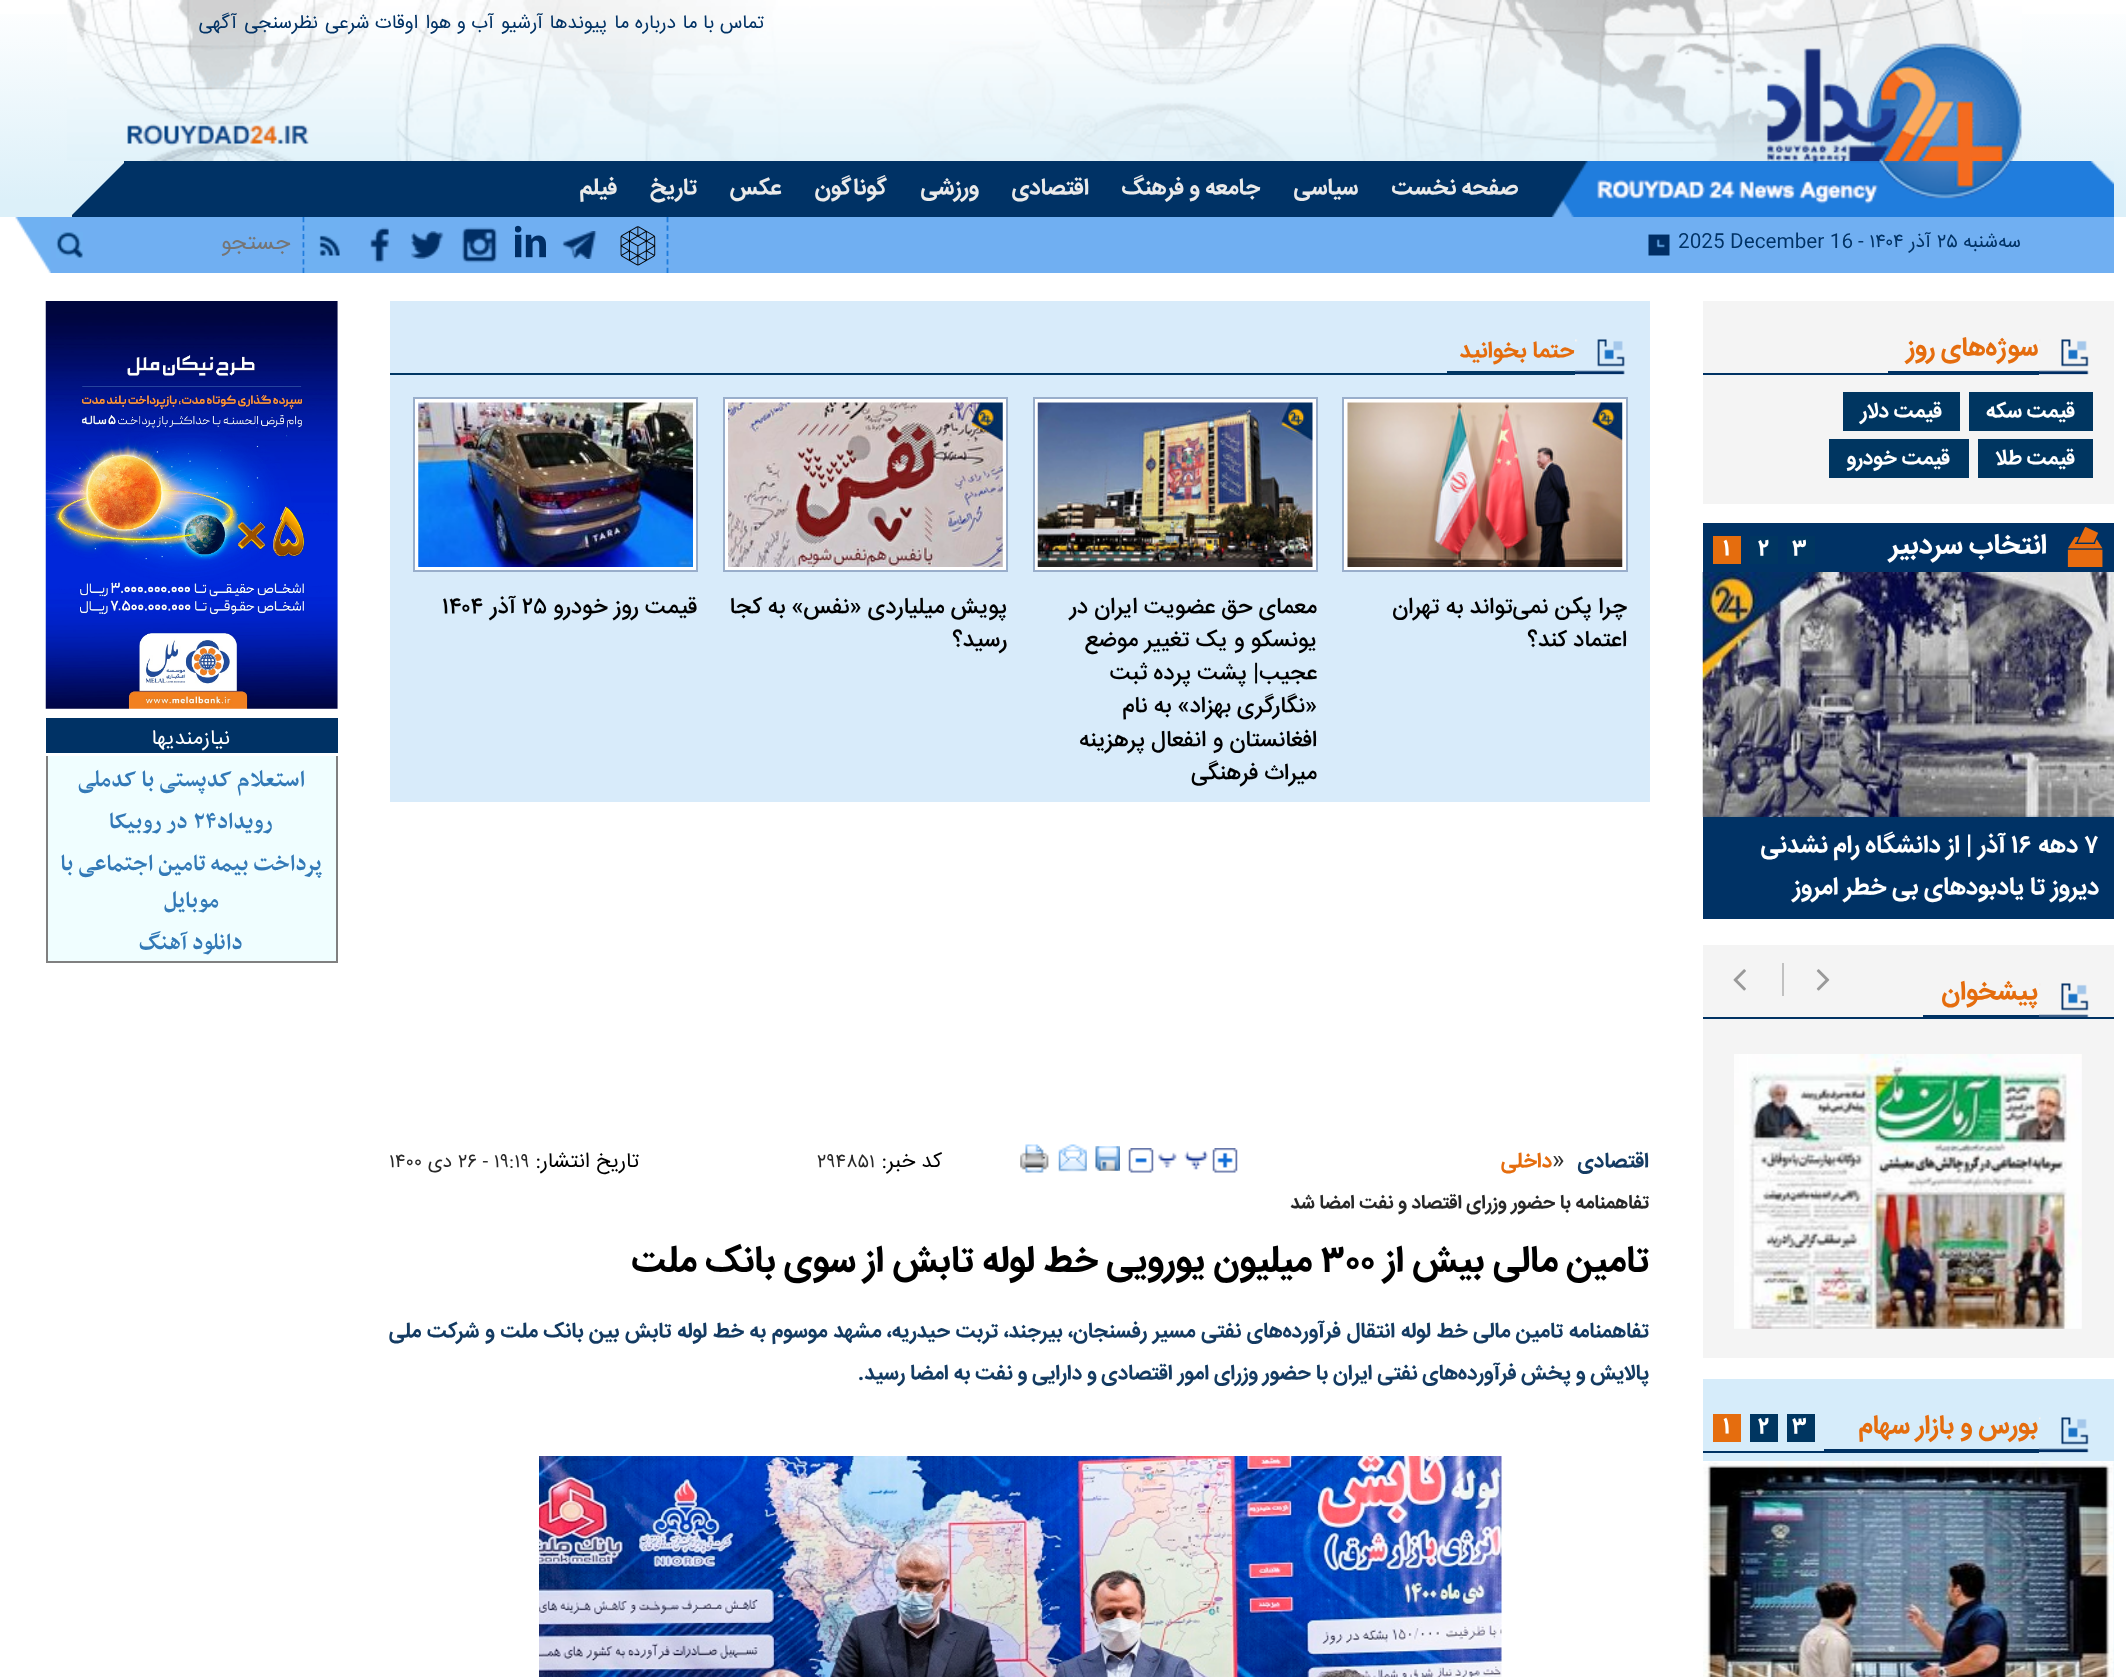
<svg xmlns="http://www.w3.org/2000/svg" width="2126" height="1677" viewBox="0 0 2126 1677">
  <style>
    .t1 { font: 19.25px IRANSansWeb; direction: rtl; fill: #003265; }
    .t2 { font: bold 22.75px IRANSansWeb; direction: rtl; fill: #eaeaea; }
    .t3 { font: 19.25px IRANSansWeb; fill: #003265; }
    .t4 { font: 22.75px IRANSansWeb; direction: rtl; fill: #757575; }
    .t5 { font: bold 26.25px IRANSansWeb; direction: rtl; fill: #e56d0e; }
    .t6 { font: bold 21px IRANSansWeb; direction: rtl; fill: #fff; }
    .t7 { font: bold 28px IRANSansWeb; direction: rtl; fill: #fff; }
    .t8 { font: bold 22.75px IRANSansWeb; fill: #fff; }
    .t9 { font: bold 24.5px IRANSansWeb; fill: #fff; }
    .t10 { font: bold 24.5px IRANSansWeb; direction: rtl; fill: #fff; }
    .t11 { font: bold 22.75px IRANSansWeb; direction: rtl; fill: #e56d0e; }
    .t12 { font: 500 22.75px IRANSansWeb; direction: rtl; fill: #000; }
    .t13 { font: 500 22.75px IRANSansWeb; fill: #000; }
    .t14 { font: bold 21px IRANSansWeb; direction: rtl; fill: #143b62; }
    .t15 { font: 24.5px IRANSansWeb; fill: #333; }
    .t16 { font: bold 21px IRANSansWeb; direction: rtl; fill: #e56d0e; }
    .t17 { font: 21px IRANSansWeb; direction: rtl; fill: #000; }
    .t18 { font: 19.25px IRANSansWeb; fill: #282828; }
    .t19 { font: 19.25px IRANSansWeb; direction: rtl; fill: #282828; }
    .t20 { font: bold 19.25px IRANSansWeb; direction: rtl; fill: #282828; }
    .t21 { font: bold 36.75px IRANSansWeb; direction: rtl; fill: #000; }
    .t22 { font: bold 36.75px IRANSansWeb; fill: #000; }
    .t23 { font: 21px IRANSansWeb; direction: rtl; fill: #fff; }
    .t24 { font: bold 26.25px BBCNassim; direction: rtl; fill: #337ab7; }
    .t25 { font: bold 26.25px BBCNassim; fill: #337ab7; }
  </style>
  <defs>
    <linearGradient id="g1" gradientUnits="userSpaceOnUse" x1="1063" y1="0" x2="1063" y2="275"><stop offset="0" stop-color="#fff"/><stop offset="0.73" stop-color="#dcf0f9"/><stop offset="0.79" stop-color="#dcf0f9"/><stop offset="0.79" stop-color="#fff"/><stop offset="1" stop-color="#fff"/></linearGradient>
    <clipPath id="clip1"><rect x="72" y="161" width="1458" height="56"/></clipPath>
  </defs>
  <rect width="100%" height="100%" fill="#fff"/>
  <rect x="0" y="14" width="2126" height="203" fill="url(#g1)"/>
  <image x="67" y="0" width="1955" height="161" href="images/1.png"/>
  <text x="764" y="28" class="t1">تماس با ما</text>
  <text x="676" y="28" class="t1">درباره ما</text>
  <text x="607" y="28" class="t1">پیوندها</text>
  <text x="543" y="28" class="t1">آرشیو</text>
  <text x="494" y="28" class="t1">آب و هوا</text>
  <text x="418" y="28" class="t1">اوقات شرعی</text>
  <text x="318" y="28" class="t1">نظرسنجی</text>
  <text x="237" y="28" class="t1">آگهی</text>
  <rect x="124" y="161" width="1427" height="56" fill="#003265"/>
  <image x="1551" y="161" width="563" height="56" href="images/2.png"/>
  <text x="1518" y="194" class="t2">صفحه نخست</text>
  <text x="1358" y="194" class="t2">سیاسی</text>
  <text x="1260" y="194" class="t2">جامعه و فرهنگ</text>
  <text x="1089" y="194" class="t2">اقتصادی</text>
  <text x="979" y="194" class="t2">ورزشی</text>
  <text x="887" y="194" class="t2">گوناگون</text>
  <text x="781" y="194" class="t2">عکس</text>
  <text x="697" y="194" class="t2">تاریخ</text>
  <text x="617" y="194" class="t2">فیلم</text>
  <g clip-path="url(#clip1)">
    <path d="M124 355H-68L124 163Z" fill="#003265"/>
  </g>
  <rect x="50" y="217" width="2064" height="56" fill="#70aff2"/>
  <text x="2021" y="247" class="t1">سه‌شنبه</text>
  <text x="1937" y="247" class="t3">۲۵</text>
  <text x="1931" y="247" class="t1">آذر</text>
  <text x="1858" y="247" class="t3">- ۱۴۰۴</text>
  <text x="1678" y="247" class="t3">2025 December 16</text>
  <image x="1648" y="234" width="22" height="22" href="images/3.png"/>
  <path d="M667.5 217V273" fill="none" stroke="#207ddd" stroke-width="1.8" stroke-dasharray="5.25 3.2"/>
  <image x="620" y="226" width="36" height="40" href="images/4.png"/>
  <image x="562" y="231" width="35" height="28" href="images/5.png"/>
  <image x="515" y="225" width="31" height="33" href="images/6.png"/>
  <image x="462" y="227" width="35" height="36" href="images/7.png"/>
  <image x="411" y="231" width="33" height="28" href="images/8.png"/>
  <image x="370" y="227" width="19" height="36" href="images/9.png"/>
  <path d="M303.5 217V273" fill="none" stroke="#207ddd" stroke-width="1.8" stroke-dasharray="5.25 3.2"/>
  <image x="304" y="217" width="36" height="56" href="images/10.png"/>
  <text x="290" y="249" class="t4">جستجو</text>
  <image x="56" y="232" width="27" height="26" href="images/11.png"/>
  <image x="14" y="217" width="37" height="56" href="images/12.png"/>
  <rect x="1703" y="301" width="411" height="203" fill="#f4f4f4"/>
  <image x="2039" y="339" width="50" height="36" href="images/13.png"/>
  <rect x="1703" y="373" width="336" height="2" fill="#003263"/>
  <rect x="1888" y="371" width="151" height="2" fill="#003263"/>
  <text x="2038" y="355" class="t5">سوژه‌های روز</text>
  <rect x="1969" y="392" width="124" height="39" fill="#003661"/>
  <text x="2075" y="417" class="t6">قیمت سکه</text>
  <rect x="1843" y="392" width="117" height="39" fill="#003661"/>
  <text x="1942" y="417" class="t6">قیمت دلار</text>
  <rect x="1978" y="439" width="115" height="39" fill="#003661"/>
  <text x="2075" y="464" class="t6">قیمت طلا</text>
  <rect x="1829" y="439" width="140" height="39" fill="#003661"/>
  <text x="1950" y="464" class="t6">قیمت خودرو</text>
  <rect x="1703" y="523" width="411" height="49" fill="#003265"/>
  <image x="2067" y="527" width="36" height="40" href="images/14.png"/>
  <text x="2047" y="553" class="t7">انتخاب سردبیر</text>
  <rect x="1703" y="815" width="411" height="104" fill="#003265"/>
  <rect x="1787" y="536" width="28" height="28" fill="#003661"/>
  <text x="1792" y="555" class="t8">۳</text>
  <rect x="1750" y="536" width="28" height="28" fill="#003661"/>
  <text x="1758" y="555" class="t8">۲</text>
  <rect x="1713" y="536" width="28" height="28" fill="#e56d0e"/>
  <text x="1723" y="555" class="t8">۱</text>
  <image x="1702" y="572" width="412" height="245" href="images/15.png"/>
  <text x="2084" y="852" class="t9">۷</text>
  <text x="2078" y="852" class="t10">دهه</text>
  <text x="2011" y="852" class="t9">۱۶</text>
  <text x="2006" y="852" class="t10">آذر | از دانشگاه رام نشدنی</text>
  <text x="2099" y="894" class="t10">دیروز تا یادبود‌های بی خطر امروز</text>
  <rect x="1703" y="1019" width="411" height="339" fill="#f4f4f4"/>
  <rect x="1703" y="945" width="411" height="72" fill="#f4f4f4"/>
  <rect x="1782" y="963" width="2" height="33" fill="#c1c1c1"/>
  <image x="1816" y="969" width="14" height="22" href="images/16.png"/>
  <image x="1733" y="969" width="13" height="22" href="images/17.png"/>
  <image x="1734" y="1054" width="348" height="275" href="images/18.png"/>
  <rect x="1703" y="1017" width="411" height="2" fill="#003263"/>
  <image x="2039" y="983" width="50" height="34" href="images/19.png"/>
  <rect x="1923" y="1015" width="116" height="2" fill="#003263"/>
  <text x="2038" y="999" class="t5">پیشخوان</text>
  <rect x="1703" y="1379" width="411" height="298" fill="#d6ecfa"/>
  <image x="2039" y="1417" width="50" height="36" href="images/20.png"/>
  <rect x="1703" y="1451" width="336" height="2" fill="#003263"/>
  <rect x="1824" y="1449" width="215" height="2" fill="#003263"/>
  <text x="2038" y="1433" class="t5">بورس و بازار سهام</text>
  <rect x="1787" y="1414" width="28" height="28" fill="#003661"/>
  <text x="1792" y="1433" class="t8">۳</text>
  <rect x="1750" y="1414" width="28" height="28" fill="#003661"/>
  <text x="1758" y="1433" class="t8">۲</text>
  <rect x="1713" y="1414" width="28" height="28" fill="#e56d0e"/>
  <text x="1723" y="1433" class="t8">۱</text>
  <image x="1703" y="1461" width="411" height="216" href="images/21.png"/>
  <rect x="390" y="301" width="1260" height="501" fill="#d8ebfa"/>
  <image x="1575" y="339" width="50" height="36" href="images/22.png"/>
  <rect x="390" y="373" width="1185" height="2" fill="#003663"/>
  <rect x="1447" y="371" width="128" height="2" fill="#003663"/>
  <text x="1574" y="357" class="t11">حتما بخوانید</text>
  <rect x="1343" y="398" width="284" height="173" fill="#fff" stroke="#99aecb" stroke-width="2"/>
  <image x="1347" y="402" width="276" height="165" href="images/23.png"/>
  <text x="1627" y="613" class="t12">چرا پکن نمی‌تواند به تهران</text>
  <text x="1627" y="646" class="t12">اعتماد کند؟</text>
  <rect x="1034" y="398" width="283" height="173" fill="#fff" stroke="#99aecb" stroke-width="2"/>
  <image x="1037" y="402" width="276" height="165" href="images/24.png"/>
  <text x="1317" y="613" class="t12">معمای حق عضویت ایران در</text>
  <text x="1317" y="646" class="t12">یونسکو و یک تغییر موضع</text>
  <text x="1317" y="679" class="t12">عجیب| پشت پرده ثبت</text>
  <text x="1317" y="712" class="t12">«نگارگری بهزاد» به نام</text>
  <text x="1317" y="746" class="t12">افغانستان و انفعال پرهزینه</text>
  <text x="1317" y="779" class="t12">میراث فرهنگی</text>
  <rect x="724" y="398" width="283" height="173" fill="#fff" stroke="#99aecb" stroke-width="2"/>
  <image x="728" y="402" width="275" height="165" href="images/25.png"/>
  <text x="1007" y="613" class="t12">پویش میلیاردی «نفس» به کجا</text>
  <text x="1007" y="646" class="t12">رسید؟</text>
  <rect x="414" y="398" width="283" height="173" fill="#fff" stroke="#99aecb" stroke-width="2"/>
  <image x="418" y="402" width="275" height="165" href="images/26.png"/>
  <text x="697" y="613" class="t12">قیمت روز خودرو</text>
  <text x="522" y="613" class="t13">۲۵</text>
  <text x="516" y="613" class="t12">آذر</text>
  <text x="442" y="613" class="t13">۱۴۰۴</text>
  <text x="1649" y="1167" class="t14">اقتصادی</text>
  <text x="1552" y="1167" class="t15">»</text>
  <text x="1552" y="1167" class="t16">داخلی</text>
  <image x="1212" y="1148" width="26" height="25" href="images/27.png"/>
  <image x="1158" y="1151" width="50" height="19" href="images/28.png"/>
  <image x="1128" y="1148" width="26" height="25" href="images/29.png"/>
  <image x="1095" y="1146" width="25" height="25" href="images/30.png"/>
  <image x="1058" y="1144" width="29" height="28" href="images/31.png"/>
  <image x="1020" y="1144" width="29" height="29" href="images/32.png"/>
  <text x="942" y="1167" class="t17">کد خبر:</text>
  <text x="817" y="1167" class="t18">۲۹۴۸۵۱</text>
  <text x="639" y="1167" class="t17">تاریخ انتشار:</text>
  <text x="458" y="1167" class="t18">۲۶ - ۱۹:۱۹</text>
  <text x="452" y="1167" class="t19">دی</text>
  <text x="389" y="1167" class="t18">۱۴۰۰</text>
  <text x="1649" y="1208" class="t20">تفاهمنامه با حضور وزرای اقتصاد و نفت امضا شد</text>
  <text x="1649" y="1271" class="t21">تامین مالی بیش از</text>
  <text x="1321" y="1271" class="t22">۳۰۰</text>
  <text x="1312" y="1271" class="t21">میلیون یورویی خط لوله تابش از سوی بانک ملت</text>
  <text x="1649" y="1337" word-spacing="0.75" class="t14">تفاهمنامه تامین مالی خط لوله انتقال فرآورده‌های نفتی مسیر رفسنجان، بیرجند، تربت حیدریه، مشهد موسوم به خط لوله تابش بین بانک ملت و شرکت ملی</text>
  <text x="1649" y="1379" class="t14">پالایش و پخش فرآورده‌های نفتی ایران با حضور وزرای امور اقتصادی و دارایی و نفت به امضا رسید.</text>
  <image x="539" y="1456" width="963" height="221" href="images/33.png"/>
  <image x="45" y="301" width="293" height="408" href="images/34.png"/>
  <rect x="46" y="718" width="292" height="35" fill="#003265"/>
  <text x="230" y="744" class="t23">نیازمندیها</text>
  <rect x="48" y="756" width="288" height="205" fill="#f0feff"/>
  <rect x="336" y="756" width="2" height="207" fill="#808080"/>
  <rect x="46" y="756" width="2" height="163" fill="#808080"/>
  <text x="305" y="786" class="t24">استعلام کدپستی با کدملی</text>
  <text x="273" y="828" class="t24">رویداد</text>
  <text x="193" y="828" class="t25">۲۴</text>
  <text x="188" y="828" class="t24">در روبیکا</text>
  <text x="322" y="870" class="t24">پرداخت بیمه تامین اجتماعی با</text>
  <text x="219" y="907" class="t24">موبایل</text>
  <rect x="46" y="961" width="292" height="2" fill="#808080"/>
  <rect x="46" y="919" width="2" height="44" fill="#808080"/>
  <text x="243" y="949" class="t24">دانلود آهنگ</text>
</svg>
